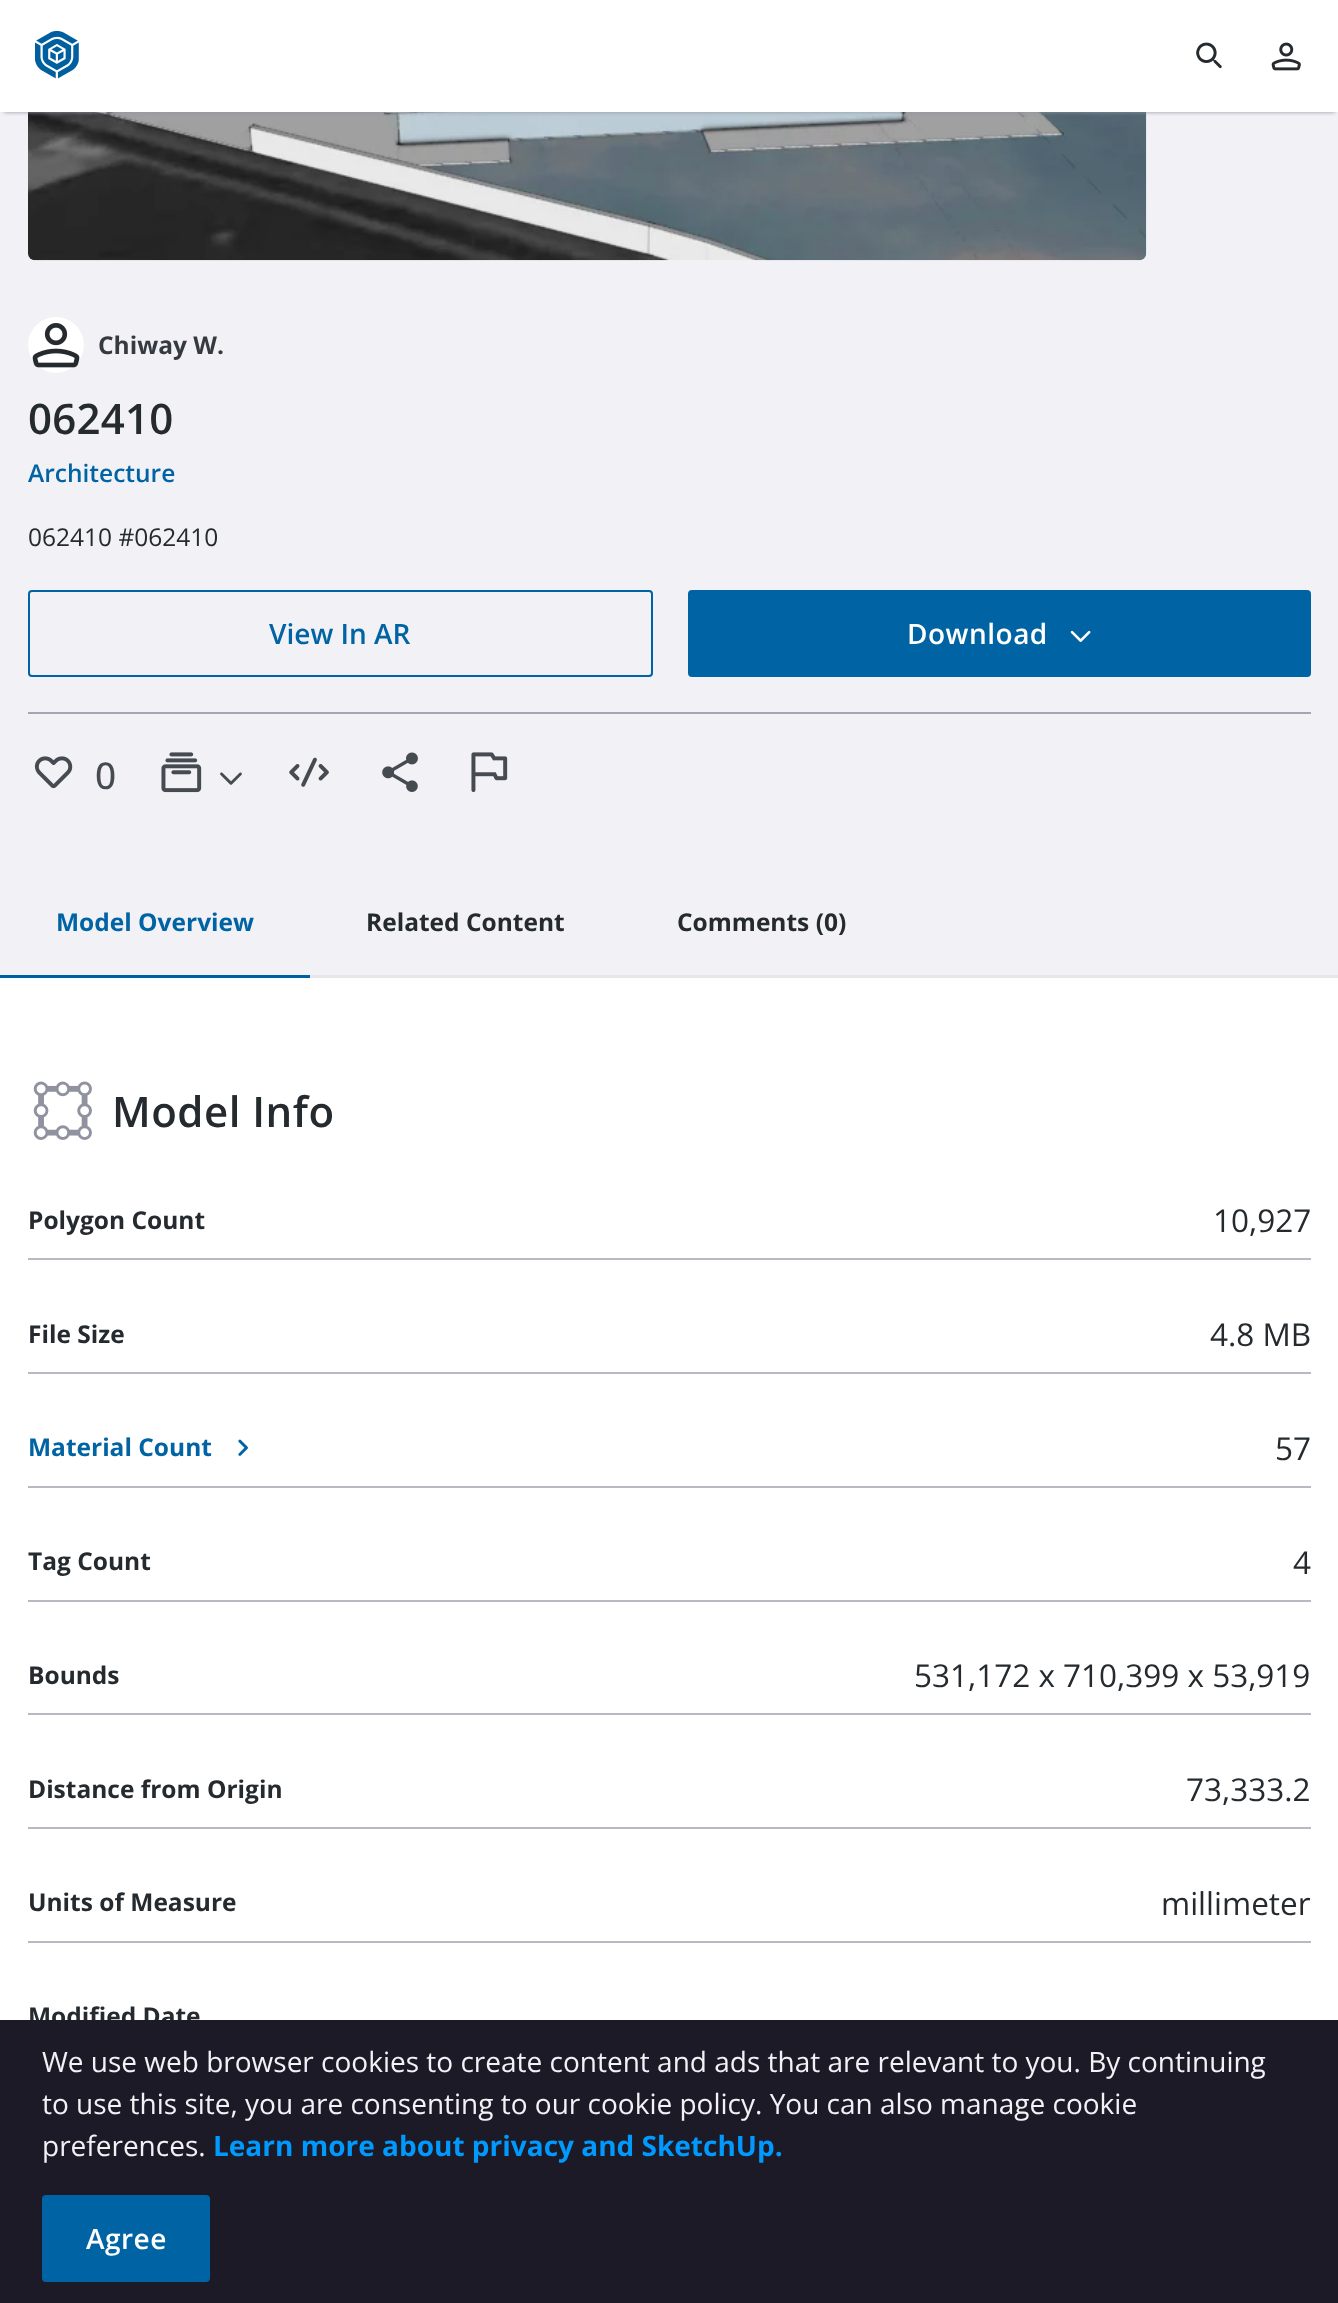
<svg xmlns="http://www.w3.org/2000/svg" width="1338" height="2303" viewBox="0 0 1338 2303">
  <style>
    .t1 { font: bold 24.5px Open Sans; fill: #353a40; }
    .t2 { font: 600 42px Open Sans; letter-spacing: 0.25px; fill: #252a2e; }
    .t3 { font: 600 24.5px Open Sans; fill: #0063a3; }
    .t4 { font: 24.5px Open Sans; fill: #252a2e; }
    .t5 { font: 600 28px Open Sans; fill: #0063a3; }
    .t6 { font: 600 28px Open Sans; letter-spacing: 0.5px; fill: #fff; }
    .t7 { font: 500 37px Open Sans; fill: #464b52; }
    .t8 { font: bold 24.5px Open Sans; fill: #0063a3; }
    .t9 { font: bold 24.5px Open Sans; fill: #252a2e; }
    .t10 { font: 600 42px Open Sans; letter-spacing: 0.5px; fill: #252a2e; }
    .t11 { font: 31.5px Open Sans; fill: #252a2e; }
    .t12 { font: 28px Open Sans; fill: #f1f1f6; }
    .t13 { font: bold 28px Open Sans; fill: #0099fe; }
  </style>
  <rect width="100%" height="100%" fill="#f1f1f6"/>
  <image x="28" y="112" width="1119" height="149" href="images/4.png"/>
  <rect x="4" y="7" width="1331" height="105" fill="#90939f" filter="blur(2px)"/>
  <rect x="0" y="0" width="1338" height="112" fill="#fff"/>
  <image x="35" y="30" width="44" height="49" href="images/1.png"/>
  <image x="1196" y="42" width="26" height="27" href="images/2.png"/>
  <image x="1271" y="42" width="30" height="29" href="images/3.png"/>
  <circle cx="56" cy="345" r="28" fill="#fff"/>
  <image x="32" y="323" width="48" height="45" href="images/5.png"/>
  <text x="98" y="354" class="t1">Chiway W.</text>
  <text x="28" y="434" class="t2">062410</text>
  <text x="28" y="482" class="t3">Architecture</text>
  <text x="28" y="546" class="t4">062410 #062410</text>
  <rect x="29" y="591" width="623" height="85" rx="3" fill="none" stroke="#0063a3" stroke-width="2"/>
  <text x="269" y="644" class="t5">View In AR</text>
  <rect x="689" y="591" width="621" height="85" rx="3" fill="#0063a3" stroke="#0063a3" stroke-width="2"/>
  <text x="907" y="644" class="t6">Download</text>
  <image x="1070" y="630" width="21" height="12" href="images/6.png"/>
  <rect x="28" y="712" width="1283" height="2" fill="#a3a6b1"/>
  <image x="34" y="756" width="39" height="33" href="images/7.png"/>
  <text x="95" y="789" class="t7">0</text>
  <image x="161" y="752" width="41" height="41" href="images/8.png"/>
  <image x="220" y="772" width="22" height="13" href="images/9.png"/>
  <image x="289" y="757" width="40" height="30" href="images/10.png"/>
  <image x="382" y="752" width="36" height="40" href="images/11.png"/>
  <image x="471" y="752" width="37" height="41" href="images/12.png"/>
  <rect x="901" y="975" width="437" height="3" fill="#e5e7eb"/>
  <rect x="0" y="975" width="310" height="3" fill="#005f9e"/>
  <text x="56" y="931" class="t8">Model Overview</text>
  <rect x="310" y="975" width="591" height="3" fill="#e5e7eb"/>
  <text x="366" y="931" class="t9">Related Content</text>
  <text x="677" y="931" class="t9">Comments (0)</text>
  <rect x="0" y="978" width="1338" height="1042" fill="#fff"/>
  <image x="33" y="1081" width="59" height="59" href="images/13.png"/>
  <text x="112" y="1127" class="t10">Model Info</text>
  <rect x="28" y="1258" width="1283" height="2" fill="#b7b9c3"/>
  <text x="28" y="1229" class="t9">Polygon Count</text>
  <text x="1213" y="1232" class="t11">10,927</text>
  <rect x="28" y="1372" width="1283" height="2" fill="#b7b9c3"/>
  <text x="28" y="1343" class="t9">File Size</text>
  <text x="1210" y="1346" class="t11">4.8 MB</text>
  <rect x="28" y="1486" width="1283" height="2" fill="#b7b9c3"/>
  <text x="28" y="1456" class="t8">Material Count</text>
  <image x="238" y="1439" width="10" height="17" href="images/14.png"/>
  <text x="1275" y="1460" class="t11">57</text>
  <rect x="28" y="1600" width="1283" height="2" fill="#b7b9c3"/>
  <text x="28" y="1570" class="t9">Tag Count</text>
  <text x="1293" y="1574" class="t11">4</text>
  <rect x="28" y="1713" width="1283" height="2" fill="#b7b9c3"/>
  <text x="28" y="1684" class="t9">Bounds</text>
  <text x="914" y="1687" class="t11">531,172 x 710,399 x 53,919</text>
  <rect x="28" y="1827" width="1283" height="2" fill="#b7b9c3"/>
  <text x="28" y="1798" class="t9">Distance from Origin</text>
  <text x="1186" y="1801" class="t11">73,333.2</text>
  <rect x="28" y="1941" width="1283" height="2" fill="#b7b9c3"/>
  <text x="28" y="1911" class="t9">Units of Measure</text>
  <text x="1161" y="1915" class="t11">millimeter</text>
  <text x="28" y="2025" class="t9">Modified Date</text>
  <rect x="0" y="2020" width="1338" height="283" fill="#1b1a26"/>
  <text x="42" y="2072" class="t12">We use web browser cookies to create content and ads that are relevant to you. By continuing</text>
  <text x="42" y="2114" class="t12">to use this site, you are consenting to our cookie policy. You can also manage cookie</text>
  <text x="42" y="2156" class="t12">preferences.</text>
  <text x="213" y="2156" class="t13">Learn more about privacy and SketchUp.</text>
  <rect x="43" y="2196" width="166" height="85" rx="3" fill="#0063a3" stroke="#0063a3" stroke-width="2"/>
  <text x="86" y="2249" class="t6">Agree</text>
</svg>
